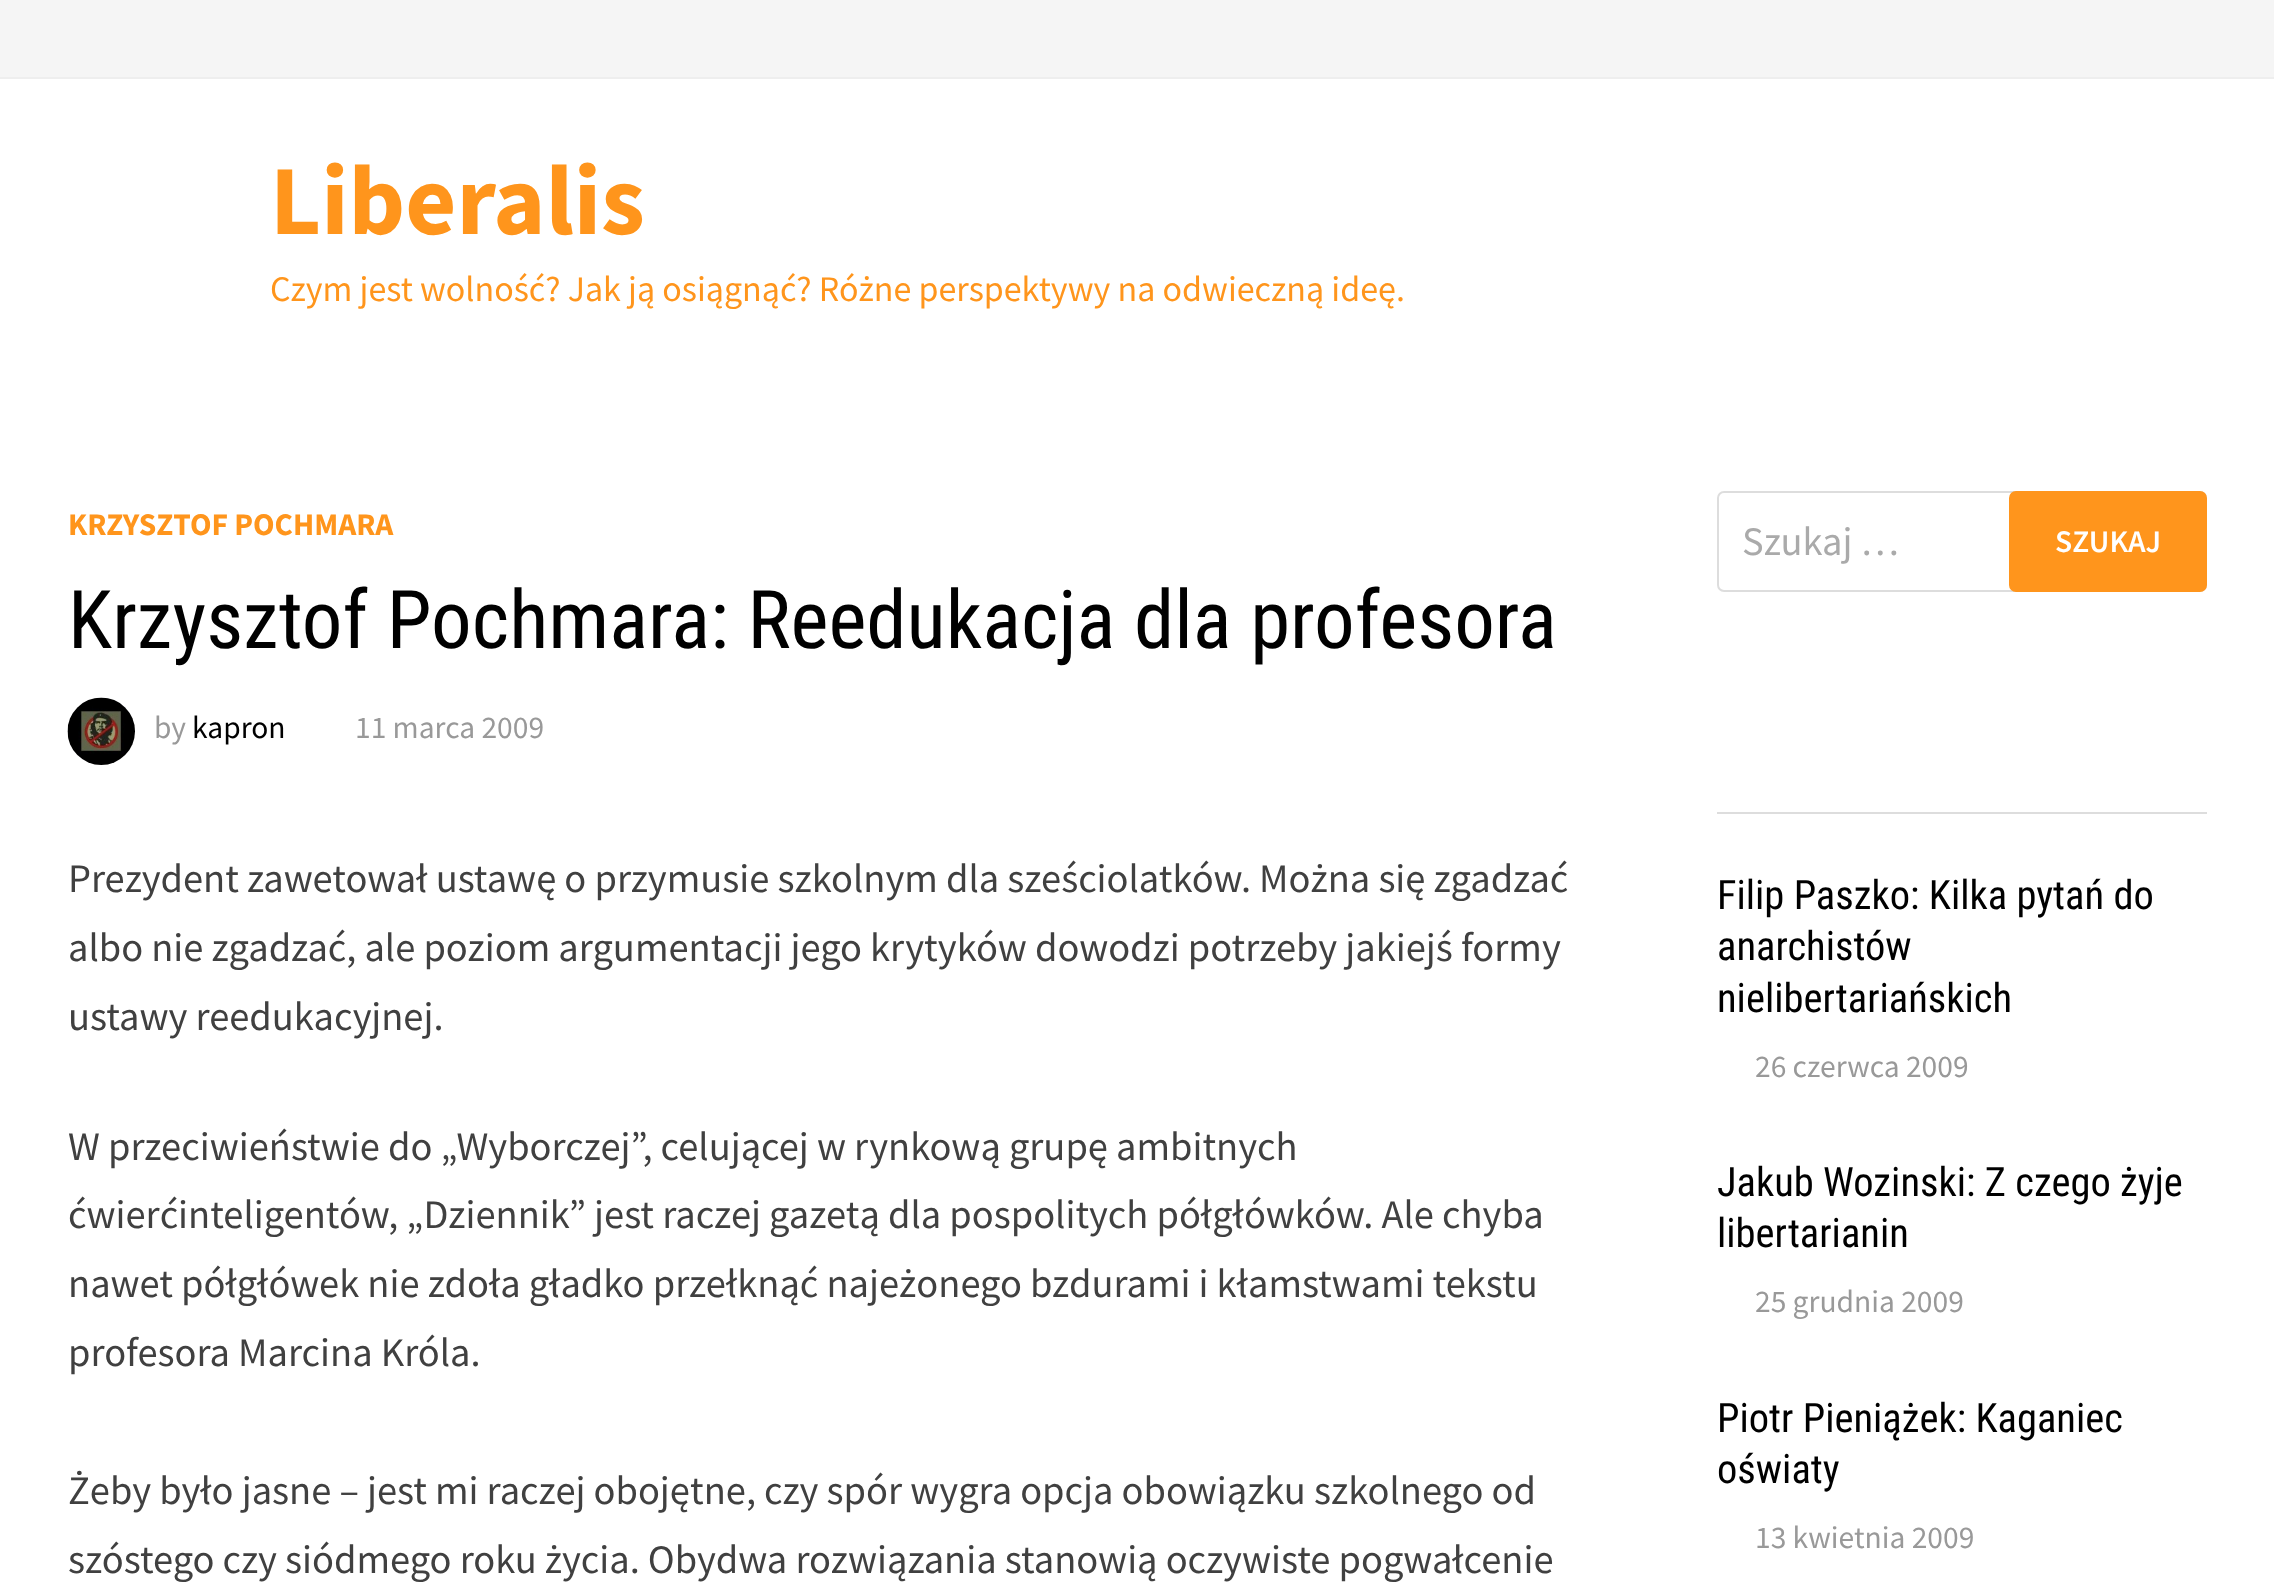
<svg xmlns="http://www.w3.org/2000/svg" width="2274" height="1591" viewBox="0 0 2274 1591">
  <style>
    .t1 { font: bold 99px Source Sans Pro; fill: #ff951c; }
    .t2 { font: 36px Source Sans Pro; fill: #ff951c; }
    .t3 { font: bold 31.5px Source Sans Pro; fill: #ff951c; }
    .t4 { font: 81px Roboto Condensed; fill: #000; }
    .t5 { font: 31.5px Source Sans Pro; fill: #999; }
    .t6 { font: 31.5px Source Sans Pro; fill: #000; }
    .t7 { font: 40.5px Source Sans Pro; fill: #404040; }
    .t8 { font: 40.5px Source Sans Pro; fill: #aaa; }
    .t9 { font: 600 31.5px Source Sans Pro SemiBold; fill: #fff; }
    .t10 { font: 40.5px Roboto Condensed; fill: #000; }
  </style>
  <rect width="100%" height="100%" fill="#fff"/>
  <rect x="0" y="0" width="2274" height="77" fill="#f5f5f5"/>
  <rect x="0" y="77" width="2274" height="2" fill="#eee"/>
  <text x="270" y="234" class="t1">Liberalis</text>
  <text x="270" y="301" class="t2">Czym jest wolność? Jak ją osiągnąć? Różne perspektywy na odwieczną ideę.</text>
  <text x="68" y="535" class="t3">KRZYSZTOF POCHMARA</text>
  <text x="68" y="648" class="t4">Krzysztof Pochmara: Reedukacja dla profesora</text>
  <image x="67" y="697" width="68" height="68" href="images/1.png"/>
  <text x="154" y="738" class="t5">by</text>
  <text x="192" y="738" class="t6">kapron</text>
  <text x="355" y="738" class="t5">11 marca 2009</text>
  <text x="68" y="892" class="t7">Prezydent zawetował ustawę o przymusie szkolnym dla sześciolatków. Można się zgadzać</text>
  <text x="68" y="961" class="t7">albo nie zgadzać, ale poziom argumentacji jego krytyków dowodzi potrzeby jakiejś formy</text>
  <text x="68" y="1030" class="t7">ustawy reedukacyjnej.</text>
  <text x="68" y="1160" class="t7">W przeciwieństwie do „Wyborczej”, celującej w rynkową grupę ambitnych</text>
  <text x="68" y="1228" class="t7">ćwierćinteligentów, „Dziennik” jest raczej gazetą dla pospolitych półgłówków. Ale chyba</text>
  <text x="68" y="1297" class="t7">nawet półgłówek nie zdoła gładko przełknąć najeżonego bzdurami i kłamstwami tekstu</text>
  <text x="68" y="1366" class="t7">profesora Marcina Króla.</text>
  <text x="68" y="1504" class="t7">Żeby było jasne – jest mi raczej obojętne, czy spór wygra opcja obowiązku szkolnego od</text>
  <text x="68" y="1573" class="t7">szóstego czy siódmego roku życia. Obydwa rozwiązania stanowią oczywiste pogwałcenie</text>
  <rect x="1718" y="492" width="488" height="99" rx="6" fill="none" stroke="#ddd" stroke-width="2"/>
  <text x="1742" y="555" class="t8">Szukaj …</text>
  <rect x="2009" y="491" width="198" height="101" rx="7" fill="#ff951c"/>
  <text x="2055" y="552" class="t9">SZUKAJ</text>
  <rect x="1717" y="812" width="490" height="2" fill="#ddd"/>
  <text x="1717" y="909" class="t10">Filip Paszko: Kilka pytań do</text>
  <text x="1717" y="960" class="t10">anarchistów</text>
  <text x="1717" y="1012" class="t10">nielibertariańskich</text>
  <text x="1755" y="1077" class="t5">26 czerwca 2009</text>
  <text x="1717" y="1196" class="t10">Jakub Wozinski: Z czego żyje</text>
  <text x="1717" y="1247" class="t10">libertarianin</text>
  <text x="1755" y="1312" class="t5">25 grudnia 2009</text>
  <text x="1717" y="1432" class="t10">Piotr Pieniążek: Kaganiec</text>
  <text x="1717" y="1483" class="t10">oświaty</text>
  <text x="1755" y="1548" class="t5">13 kwietnia 2009</text>
</svg>
